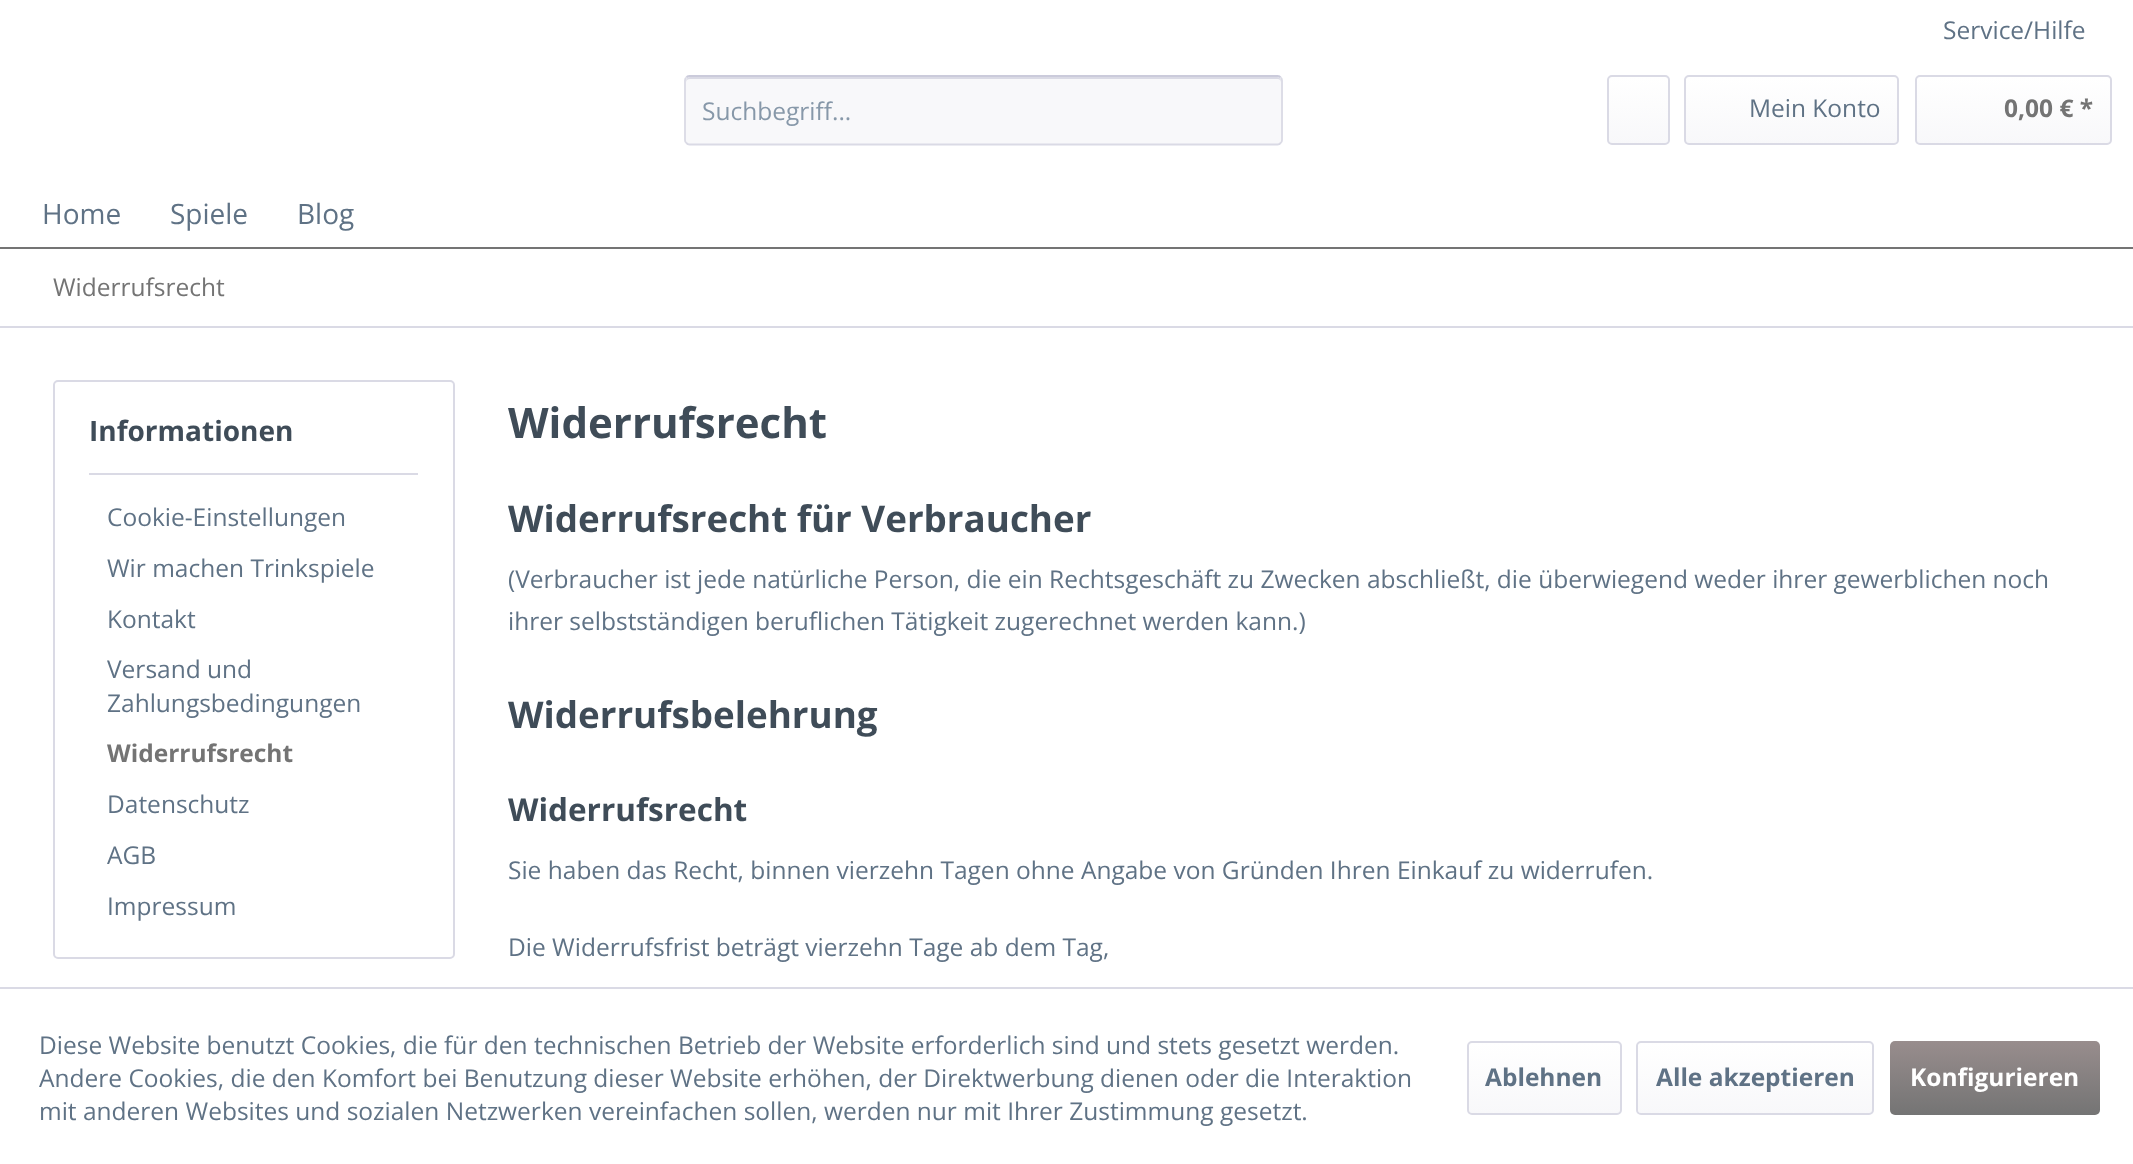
<svg xmlns="http://www.w3.org/2000/svg" width="2133" height="1164" viewBox="0 0 2133 1164">
  <style>
    .t1 { font: 24.5px Open Sans; fill: #5f7285; }
    .t2 { font: 24.5px Open Sans; fill: #8798a9; }
    .t3 { font: bold 24.5px Open Sans; fill: #747474; }
    .t4 { font: 28px Open Sans; fill: #5f7285; }
    .t5 { font: 24.5px Open Sans; fill: #747474; }
    .t6 { font: bold 28px Open Sans; fill: #3f4c58; }
    .t7 { font: bold 42px Open Sans; fill: #3f4c58; }
    .t8 { font: bold 36.75px Open Sans; fill: #3f4c58; }
    .t9 { font: bold 31.5px Open Sans; fill: #3f4c58; }
    .t10 { font: bold 24.5px Open Sans; fill: #5f7285; }
    .t11 { font: bold 24.5px Open Sans; fill: #fff; }
  </style>
  <defs>
    <linearGradient id="g1" gradientUnits="userSpaceOnUse" x1="1638" y1="77" x2="1638" y2="144"><stop offset="0" stop-color="#fff"/><stop offset="1" stop-color="#f8f8fa"/></linearGradient>
    <linearGradient id="g2" gradientUnits="userSpaceOnUse" x1="1791" y1="77" x2="1791" y2="144"><stop offset="0" stop-color="#fff"/><stop offset="1" stop-color="#f8f8fa"/></linearGradient>
    <linearGradient id="g3" gradientUnits="userSpaceOnUse" x1="2013" y1="77" x2="2013" y2="144"><stop offset="0" stop-color="#fff"/><stop offset="1" stop-color="#f8f8fa"/></linearGradient>
    <linearGradient id="g4" gradientUnits="userSpaceOnUse" x1="1544" y1="1043" x2="1544" y2="1113"><stop offset="0" stop-color="#fff"/><stop offset="1" stop-color="#f8f8fa"/></linearGradient>
    <linearGradient id="g5" gradientUnits="userSpaceOnUse" x1="1755" y1="1043" x2="1755" y2="1113"><stop offset="0" stop-color="#fff"/><stop offset="1" stop-color="#f8f8fa"/></linearGradient>
    <linearGradient id="g6" gradientUnits="userSpaceOnUse" x1="1995" y1="1041" x2="1995" y2="1115"><stop offset="0" stop-color="#988d8d"/><stop offset="1" stop-color="#747474"/></linearGradient>
  </defs>
  <rect width="100%" height="100%" fill="#fff"/>
  <text x="1943" y="39" class="t1">Service/Hilfe</text>
  <rect x="684" y="75" width="599" height="70" rx="5" fill="#f8f8fa"/>
  <path d="M690 79H1278C1279 79 1281 80 1281 82V81C1281 79 1279 77 1277 77H690C688 77 686 79 686 81V82C686 80 688 79 690 79Z" fill="#dadae5"/>
  <path d="M686.5 77.5C687 76.5 688.5 76 689.5 76H1277.5C1278.5 76 1280 76.5 1280.5 77.5" fill="none" stroke="#cbcbdb" stroke-width="1.8"/>
  <path d="M1280.5 77.5C1281.5 78 1282 79.5 1282 80.5V140C1282 141 1281.5 142.5 1280.5 143C1280 144 1278.5 144.5 1277.5 144.5H689.5C688.5 144.5 687 144 686.5 143C685.5 142.5 685 141 685 140V80.5C685 79.5 685.5 78 686.5 77.5" fill="none" stroke="#dadae5" stroke-width="1.8"/>
  <text x="702" y="120" class="t2">Suchbegriff...</text>
  <rect x="1608" y="77" width="60" height="67" rx="4" fill="url(#g1)"/>
  <rect x="1608" y="76" width="61" height="68" rx="4" fill="none" stroke="#dadae5" stroke-width="2"/>
  <rect x="1685" y="77" width="212" height="67" rx="4" fill="url(#g2)"/>
  <rect x="1685" y="76" width="213" height="68" rx="4" fill="none" stroke="#dadae5" stroke-width="2"/>
  <text x="1749" y="117" class="t1">Mein Konto</text>
  <rect x="1916" y="77" width="195" height="67" rx="4" fill="url(#g3)"/>
  <rect x="1916" y="76" width="195" height="68" rx="4" fill="none" stroke="#dadae5" stroke-width="2"/>
  <text x="2004" y="117" class="t3">0,00 € *</text>
  <rect x="0" y="247" width="2133" height="2" fill="#747474"/>
  <text x="42" y="224" class="t4">Home</text>
  <text x="170" y="224" class="t4">Spiele</text>
  <text x="297" y="224" class="t4">Blog</text>
  <rect x="0" y="326" width="2133" height="2" fill="#dadae5"/>
  <text x="53" y="296" class="t5">Widerrufsrecht</text>
  <rect x="54" y="381" width="400" height="577" rx="4" fill="none" stroke="#dadae5" stroke-width="2"/>
  <rect x="89" y="473" width="329" height="2" fill="#dadae5"/>
  <text x="89" y="441" class="t6">Informationen</text>
  <text x="107" y="526" class="t1">Cookie-Einstellungen</text>
  <text x="107" y="577" class="t1">Wir machen Trinkspiele</text>
  <text x="107" y="628" class="t1">Kontakt</text>
  <text x="107" y="678" class="t1">Versand und</text>
  <text x="107" y="712" class="t1">Zahlungsbedingungen</text>
  <text x="107" y="762" class="t3">Widerrufsrecht</text>
  <text x="107" y="813" class="t1">Datenschutz</text>
  <text x="107" y="864" class="t1">AGB</text>
  <text x="107" y="915" class="t1">Impressum</text>
  <text x="508" y="438" class="t7">Widerrufsrecht</text>
  <text x="508" y="532" class="t8">Widerrufsrecht für Verbraucher</text>
  <text x="508" y="588" class="t1">(Verbraucher ist jede natürliche Person, die ein Rechtsgeschäft zu Zwecken abschließt, die überwiegend weder ihrer gewerblichen noch</text>
  <text x="508" y="630" class="t1">ihrer selbstständigen beruflichen Tätigkeit zugerechnet werden kann.)</text>
  <text x="508" y="728" class="t8">Widerrufsbelehrung</text>
  <text x="508" y="821" class="t9">Widerrufsrecht</text>
  <text x="508" y="879" class="t1">Sie haben das Recht, binnen vierzehn Tagen ohne Angabe von Gründen Ihren Einkauf zu widerrufen.</text>
  <text x="508" y="956" class="t1">Die Widerrufsfrist beträgt vierzehn Tage ab dem Tag,</text>
  <rect x="0" y="987" width="2133" height="2" fill="#dadae5"/>
  <text x="39" y="1054" class="t1">Diese Website benutzt Cookies, die für den technischen Betrieb der Website erforderlich sind und stets gesetzt werden.</text>
  <text x="39" y="1087" class="t1">Andere Cookies, die den Komfort bei Benutzung dieser Website erhöhen, der Direktwerbung dienen oder die Interaktion</text>
  <text x="39" y="1120" class="t1">mit anderen Websites und sozialen Netzwerken vereinfachen sollen, werden nur mit Ihrer Zustimmung gesetzt.</text>
  <rect x="1468" y="1043" width="153" height="70" rx="4" fill="url(#g4)"/>
  <rect x="1468" y="1042" width="153" height="72" rx="4" fill="none" stroke="#dadae5" stroke-width="2"/>
  <text x="1485" y="1086" class="t10">Ablehnen</text>
  <rect x="1638" y="1043" width="235" height="70" rx="4" fill="url(#g5)"/>
  <rect x="1637" y="1042" width="236" height="72" rx="4" fill="none" stroke="#dadae5" stroke-width="2"/>
  <text x="1656" y="1086" class="t10">Alle akzeptieren</text>
  <rect x="1890" y="1041" width="210" height="74" rx="5" fill="url(#g6)"/>
  <text x="1910" y="1086" class="t11">Konfigurieren</text>
</svg>
